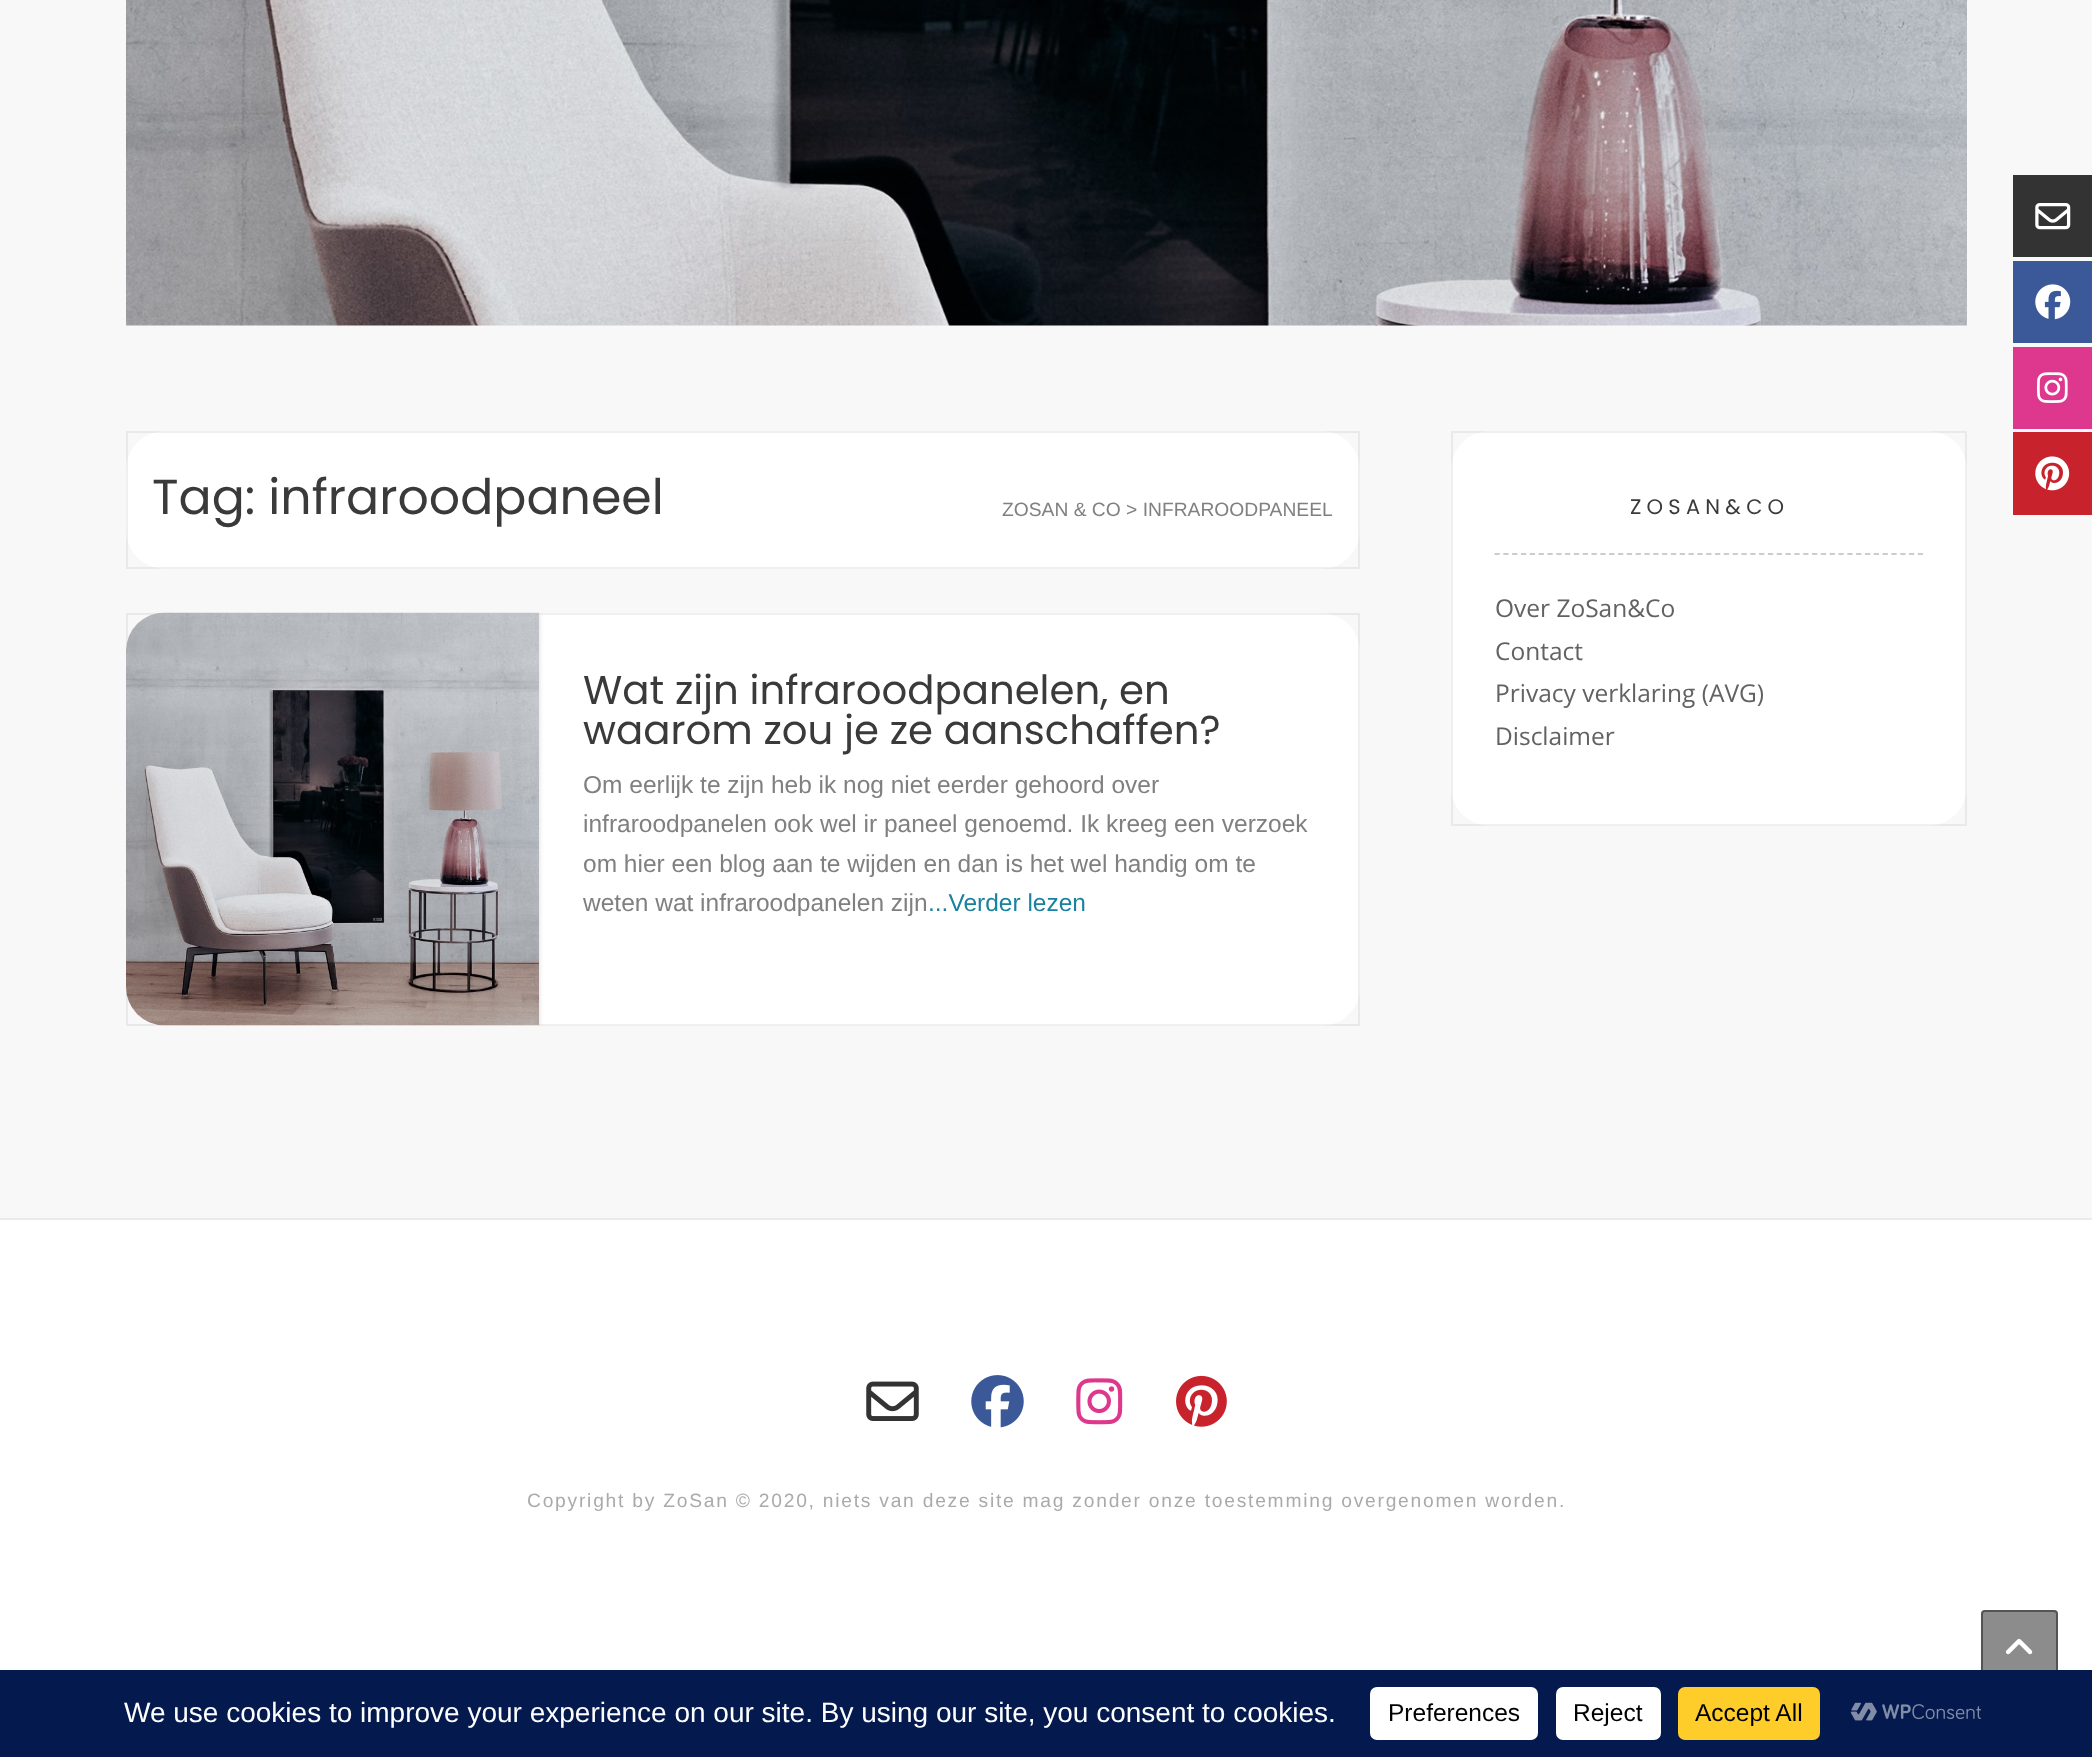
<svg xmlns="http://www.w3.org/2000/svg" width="2092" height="1757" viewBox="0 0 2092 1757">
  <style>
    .t1 { font: 49px Poppins; fill: #3a3a3a; }
    .t2 { font: 19.25px Liberation Sans; fill: #808080; }
    .t3 { font: 40.25px Poppins; fill: #3a3a3a; }
    .t4 { font: 24.5px Liberation Sans; fill: #808080; }
    .t5 { font: 24.5px Liberation Sans; fill: #1b81a0; }
    .t6 { font: 21px Poppins; letter-spacing: 5.25px; fill: #3a3a3a; }
    .t7 { font: 24.5px Open Sans; fill: #636161; }
    .t8 { font: 19.25px Liberation Sans; letter-spacing: 1.75px; fill: #aaa; }
    .t9 { font: 28px Liberation Sans; fill: #fff; }
    .t10 { font: 24.5px Liberation Sans; fill: #000; }
  </style>
  <defs>
    <clipPath id="clip1"><rect x="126" y="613" width="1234" height="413" rx="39"/></clipPath>
    <clipPath id="clip2"><path d="M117 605H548V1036H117ZM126 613H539V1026H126Z" clip-rule="evenodd"/></clipPath>
  </defs>
  <rect width="100%" height="100%" fill="#f8f8f8"/>
  <rect x="2013" y="175" width="79" height="82" fill="#333"/>
  <image x="2035" y="203" width="36" height="27" href="images/1.png"/>
  <rect x="2013" y="261" width="79" height="82" fill="#3b5998"/>
  <image x="2035" y="284" width="36" height="36" href="images/2.png"/>
  <rect x="2013" y="347" width="79" height="82" fill="#dd378e"/>
  <image x="2037" y="372" width="31" height="31" href="images/3.png"/>
  <rect x="2013" y="432" width="79" height="83" fill="#c8232c"/>
  <image x="2035" y="456" width="35" height="35" href="images/4.png"/>
  <image x="126" y="0" width="1841" height="326" href="images/5.png"/>
  <rect x="126" y="431" width="1234" height="138" rx="39" fill="#fff"/>
  <rect x="127" y="432" width="1232" height="136" fill="none" stroke="#0000000f" stroke-width="2"/>
  <text x="152" y="514" class="t1">Tag: infraroodpaneel</text>
  <text x="1002" y="516" class="t2">ZOSAN &amp; CO &gt; INFRAROODPANEEL</text>
  <rect x="126" y="613" width="1234" height="413" rx="39" fill="#fff"/>
  <rect x="127" y="614" width="1232" height="411" fill="none" stroke="#0000000f" stroke-width="2"/>
  <image x="126" y="612" width="413" height="414" href="images/6.png"/>
  <g clip-path="url(#clip1)">
    <g clip-path="url(#clip2)">
      <rect x="126" y="614" width="413" height="413" fill="#00000026" filter="blur(2.5px)"/>
    </g>
  </g>
  <text x="583" y="704" class="t3">Wat zijn infraroodpanelen, en</text>
  <text x="583" y="744" class="t3">waarom zou je ze aanschaffen?</text>
  <text x="583" y="793" class="t4">Om eerlijk te zijn heb ik nog niet eerder gehoord over</text>
  <text x="583" y="832" class="t4">infraroodpanelen ook wel ir paneel genoemd. Ik kreeg een verzoek</text>
  <text x="583" y="872" class="t4">om hier een blog aan te wijden en dan is het wel handig om te</text>
  <text x="583" y="911" class="t4">weten wat infraroodpanelen zijn</text>
  <text x="928" y="911" class="t5">...Verder lezen</text>
  <rect x="1451" y="431" width="516" height="395" rx="39" fill="#fff"/>
  <rect x="1452" y="432" width="514" height="393" fill="none" stroke="#0000000f" stroke-width="2"/>
  <path d="M1494.5 554H1923" fill="none" stroke="#ccc" stroke-width="1.8" stroke-dasharray="5.25 3.57"/>
  <text x="1630" y="514" class="t6">ZOSAN&amp;CO</text>
  <text x="1495" y="617" class="t7">Over ZoSan&amp;Co</text>
  <text x="1495" y="660" class="t7">Contact</text>
  <text x="1495" y="702" class="t7">Privacy verklaring (AVG)</text>
  <text x="1495" y="745" class="t7">Disclaimer</text>
  <rect x="0" y="1220" width="2092" height="450" fill="#fff"/>
  <rect x="0" y="1218" width="2092" height="2" fill="#ebebeb"/>
  <image x="866" y="1381" width="53" height="40" href="images/7.png"/>
  <image x="971" y="1375" width="53" height="53" href="images/8.png"/>
  <image x="1076" y="1378" width="47" height="47" href="images/9.png"/>
  <image x="1176" y="1375" width="51" height="52" href="images/10.png"/>
  <text x="527" y="1507" class="t8">Copyright by ZoSan © 2020, niets van deze site mag zonder onze toestemming overgenomen worden.</text>
  <rect x="1981" y="1610" width="77" height="77" rx="4" fill="#00000073"/>
  <rect x="1982" y="1611" width="75" height="75" rx="3" fill="none" stroke="#00000066" stroke-width="2"/>
  <image x="2006" y="1638" width="27" height="17" href="images/11.png"/>
  <rect x="0" y="1670" width="2092" height="87" fill="#04194e"/>
  <text x="124" y="1722" class="t9">We use cookies to improve your experience on our site. By using our site, you consent to cookies.</text>
  <rect x="1370" y="1687" width="168" height="53" rx="7" fill="#fff"/>
  <text x="1388" y="1721" class="t10">Preferences</text>
  <rect x="1556" y="1687" width="105" height="53" rx="7" fill="#fff"/>
  <text x="1573" y="1721" class="t10">Reject</text>
  <rect x="1678" y="1687" width="142" height="53" rx="7" fill="#ffcd2a"/>
  <text x="1695" y="1721" class="t10">Accept All</text>
  <image x="1850" y="1702" width="131" height="19" href="images/12.png"/>
</svg>
